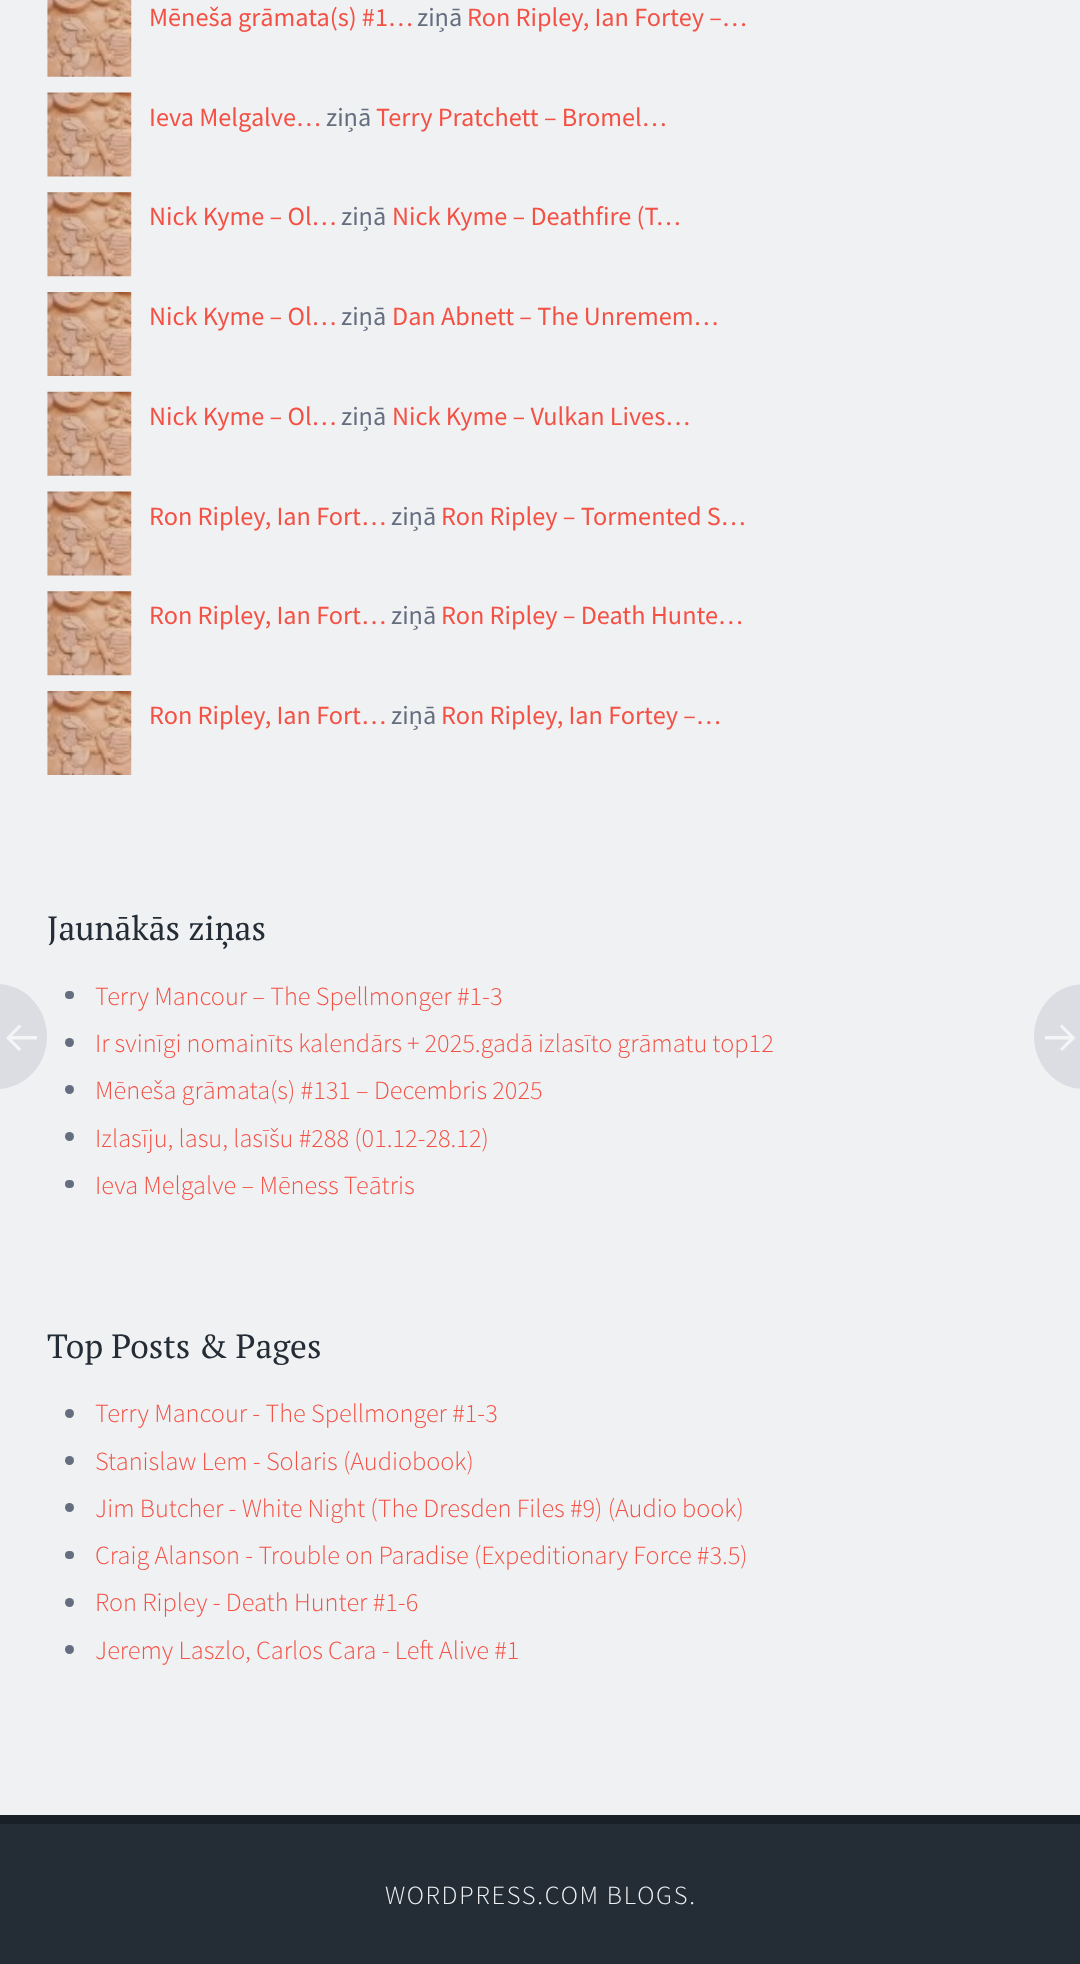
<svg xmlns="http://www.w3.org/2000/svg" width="1080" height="1964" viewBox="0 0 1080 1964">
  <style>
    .t1 { font: 26.25px Source Sans Pro; fill: #f45145; }
    .t2 { font: 26.25px Source Sans Pro; fill: #656e7f; }
    .t3 { font: 33.5px PT Serif; fill: #242d36; }
    .t4 { font: 300 26.25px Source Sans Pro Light; fill: #f45145; }
    .t5 { font: 300 26.25px Source Sans Pro Light; letter-spacing: 1.75px; fill: #f0f1f3; }
  </style>
  <rect width="100%" height="100%" fill="#f0f1f3"/>
  <image x="47" y="0" width="85" height="77" href="images/1.png"/>
  <text x="149" y="26" class="t1">Mēneša grāmata(s) #1…</text>
  <text x="417" y="26" class="t2">ziņā</text>
  <text x="467" y="26" class="t1">Ron Ripley, Ian Fortey –…</text>
  <image x="47" y="92" width="85" height="85" href="images/2.png"/>
  <text x="149" y="126" class="t1">Ieva Melgalve…</text>
  <text x="326" y="126" class="t2">ziņā</text>
  <text x="376" y="126" class="t1">Terry Pratchett – Bromel…</text>
  <image x="47" y="192" width="85" height="85" href="images/3.png"/>
  <text x="149" y="225" class="t1">Nick Kyme – Ol…</text>
  <text x="341" y="225" class="t2">ziņā</text>
  <text x="392" y="225" class="t1">Nick Kyme – Deathfire (T…</text>
  <image x="47" y="292" width="85" height="84" href="images/4.png"/>
  <text x="149" y="325" class="t1">Nick Kyme – Ol…</text>
  <text x="341" y="325" class="t2">ziņā</text>
  <text x="392" y="325" class="t1">Dan Abnett – The Unremem…</text>
  <image x="47" y="391" width="85" height="85" href="images/5.png"/>
  <text x="149" y="425" class="t1">Nick Kyme – Ol…</text>
  <text x="341" y="425" class="t2">ziņā</text>
  <text x="392" y="425" class="t1">Nick Kyme – Vulkan Lives…</text>
  <image x="47" y="491" width="85" height="85" href="images/2.png"/>
  <text x="149" y="525" class="t1">Ron Ripley, Ian Fort…</text>
  <text x="391" y="525" class="t2">ziņā</text>
  <text x="441" y="525" class="t1">Ron Ripley – Tormented S…</text>
  <image x="47" y="591" width="85" height="85" href="images/3.png"/>
  <text x="149" y="624" class="t1">Ron Ripley, Ian Fort…</text>
  <text x="391" y="624" class="t2">ziņā</text>
  <text x="441" y="624" class="t1">Ron Ripley – Death Hunte…</text>
  <image x="47" y="691" width="85" height="84" href="images/4.png"/>
  <text x="149" y="724" class="t1">Ron Ripley, Ian Fort…</text>
  <text x="391" y="724" class="t2">ziņā</text>
  <text x="441" y="724" class="t1">Ron Ripley, Ian Fortey –…</text>
  <text x="47" y="940" class="t3">Jaunākās ziņas</text>
  <rect x="65" y="991" width="9" height="8" rx="4" fill="#656e7f"/>
  <text x="95" y="1005" class="t4">Terry Mancour – The Spellmonger #1-3</text>
  <circle cx="69.5" cy="1042.5" r="4.5" fill="#656e7f"/>
  <text x="95" y="1052" word-spacing="-0.25" class="t4">Ir svinīgi nomainīts kalendārs + 2025.gadā izlasīto grāmatu top12</text>
  <circle cx="69.5" cy="1089.5" r="4.5" fill="#656e7f"/>
  <text x="95" y="1099" class="t4">Mēneša grāmata(s) #131 – Decembris 2025</text>
  <circle cx="69.5" cy="1136.5" r="4.5" fill="#656e7f"/>
  <text x="95" y="1147" class="t4">Izlasīju, lasu, lasīšu #288 (01.12-28.12)</text>
  <rect x="65" y="1180" width="9" height="8" rx="4" fill="#656e7f"/>
  <text x="95" y="1194" class="t4">Ieva Melgalve – Mēness Teātris</text>
  <text x="47" y="1358" class="t3">Top Posts &amp; Pages</text>
  <circle cx="69.5" cy="1413.5" r="4.5" fill="#656e7f"/>
  <text x="95" y="1422" class="t4">Terry Mancour - The Spellmonger #1-3</text>
  <circle cx="69.5" cy="1460.5" r="4.5" fill="#656e7f"/>
  <text x="95" y="1470" class="t4">Stanislaw Lem - Solaris (Audiobook)</text>
  <circle cx="69.5" cy="1507.5" r="4.5" fill="#656e7f"/>
  <text x="95" y="1517" class="t4">Jim Butcher - White Night (The Dresden Files #9) (Audio book)</text>
  <rect x="65" y="1551" width="9" height="8" rx="4" fill="#656e7f"/>
  <text x="95" y="1564" class="t4">Craig Alanson - Trouble on Paradise (Expeditionary Force #3.5)</text>
  <circle cx="69.5" cy="1602.5" r="4.5" fill="#656e7f"/>
  <text x="95" y="1611" class="t4">Ron Ripley - Death Hunter #1-6</text>
  <circle cx="69.5" cy="1649.5" r="4.5" fill="#656e7f"/>
  <text x="95" y="1659" class="t4">Jeremy Laszlo, Carlos Cara - Left Alive #1</text>
  <rect x="-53" y="984" width="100" height="105" rx="52.5" fill="#dbdde2"/>
  <path d="M19 1024.5L21.5 1026.5L12 1036H37V1039.5H12L21.5 1049L19 1051L6 1038Z" fill="#f4f5f6"/>
  <rect x="1034" y="984" width="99" height="105" rx="52.5" fill="#dbdde2"/>
  <path d="M1062 1024.5L1075.5 1038L1062 1051L1060 1049L1069 1039.5H1045V1036H1069L1060 1026.5Z" fill="#f4f5f6"/>
  <rect x="0" y="1824" width="1080" height="140" fill="#242d36"/>
  <rect x="0" y="1815" width="1080" height="9" fill="#1a2027"/>
  <text x="385" y="1904" class="t5">WORDPRESS.COM BLOGS.</text>
</svg>
